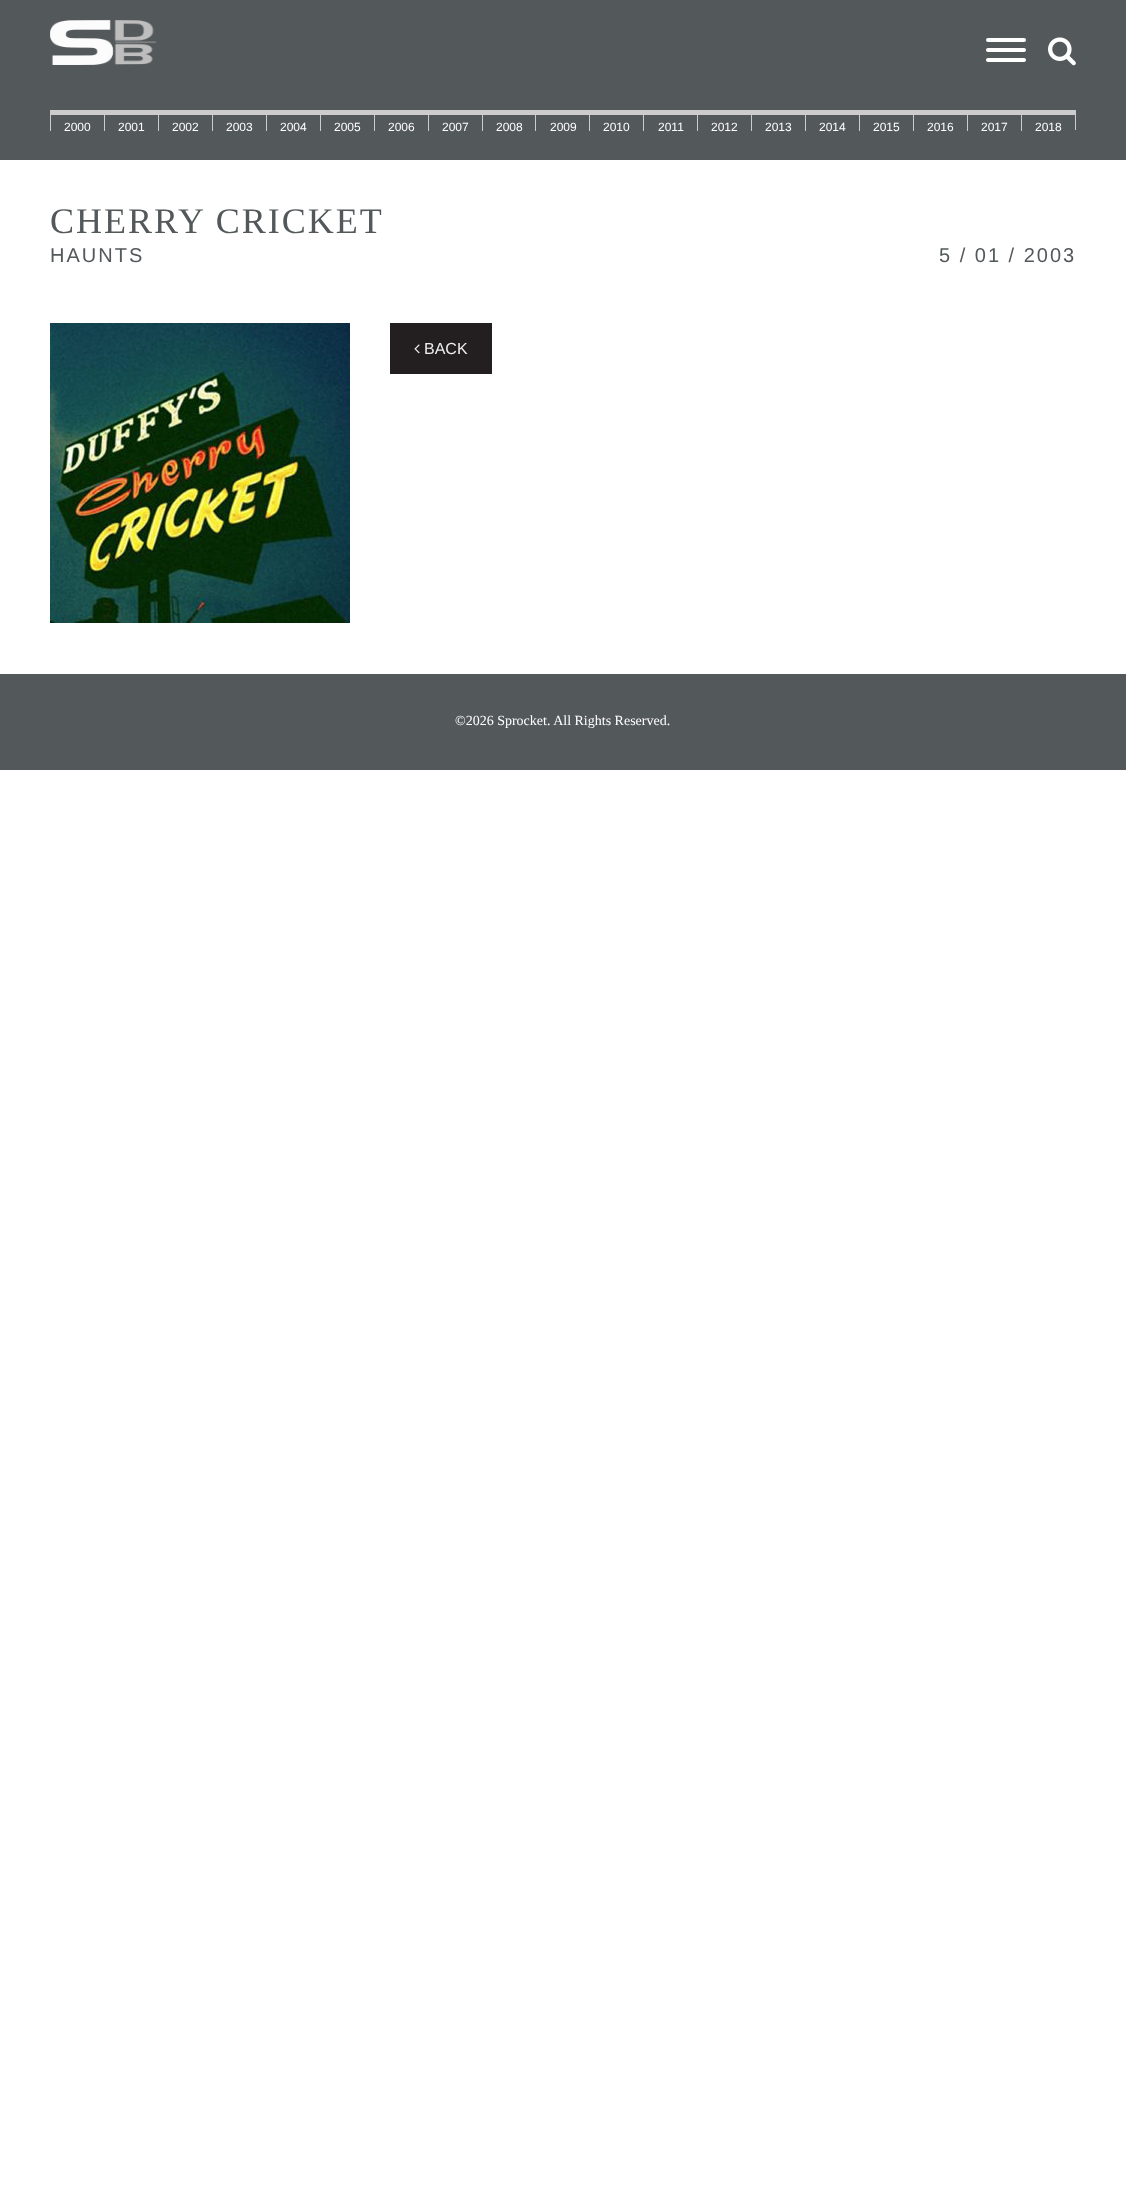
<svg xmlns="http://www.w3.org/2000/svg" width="1126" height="2208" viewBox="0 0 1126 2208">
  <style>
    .t1 { font: 12px Liberation Sans; fill: #fff; }
    .t2 { font: 36px Liberation Serif; letter-spacing: 2px; fill: #53585a; }
    .t3 { font: 20px Liberation Sans; letter-spacing: 2px; fill: #53585a; }
    .t4 { font: 16px Liberation Sans; fill: #eee; }
    .t5 { font: 14px Liberation Serif; fill: #fff; }
  </style>
  <defs>
    <clipPath id="clip1"><rect x="51" y="111" width="53" height="20"/></clipPath>
    <clipPath id="clip2"><rect x="213" y="111" width="53" height="20"/></clipPath>
    <clipPath id="clip3"><rect x="536" y="111" width="53" height="20"/></clipPath>
  </defs>
  <rect width="100%" height="100%" fill="#fff"/>
  <rect x="0" y="0" width="1126" height="160" fill="#53585a"/>
  <image x="50" y="20" width="107" height="45" href="images/1.png"/>
  <rect x="986" y="38" width="40" height="4" rx="2" fill="#fff"/>
  <rect x="986" y="48" width="40" height="4" rx="2" fill="#fff"/>
  <rect x="986" y="58" width="40" height="4" rx="2" fill="#fff"/>
  <image x="1048" y="37" width="28" height="29" href="images/2.png"/>
  <rect x="50" y="110" width="1026" height="1" fill="#ccc"/>
  <rect x="1075" y="110" width="1" height="20" fill="#ccc"/>
  <rect x="50" y="111" width="1" height="20" fill="#ccc"/>
  <rect x="51" y="111" width="53" height="4" fill="#ccc"/>
  <g clip-path="url(#clip1)">
    <text x="64" y="131" class="t1">2000</text>
  </g>
  <rect x="104" y="111" width="1" height="20" fill="#ccc"/>
  <rect x="105" y="111" width="53" height="4" fill="#ccc"/>
  <text x="118" y="131" class="t1">2001</text>
  <rect x="158" y="111" width="1" height="20" fill="#ccc"/>
  <rect x="159" y="111" width="53" height="4" fill="#ccc"/>
  <text x="172" y="131" class="t1">2002</text>
  <rect x="212" y="111" width="1" height="20" fill="#ccc"/>
  <rect x="213" y="111" width="53" height="4" fill="#ccc"/>
  <g clip-path="url(#clip2)">
    <text x="226" y="131" class="t1">2003</text>
  </g>
  <rect x="266" y="111" width="1" height="20" fill="#ccc"/>
  <rect x="267" y="111" width="53" height="4" fill="#ccc"/>
  <text x="280" y="131" class="t1">2004</text>
  <rect x="320" y="111" width="1" height="20" fill="#ccc"/>
  <rect x="321" y="111" width="53" height="4" fill="#ccc"/>
  <text x="334" y="131" class="t1">2005</text>
  <rect x="374" y="111" width="1" height="20" fill="#ccc"/>
  <rect x="375" y="111" width="53" height="4" fill="#ccc"/>
  <text x="388" y="131" class="t1">2006</text>
  <rect x="428" y="111" width="1" height="20" fill="#ccc"/>
  <rect x="429" y="111" width="53" height="4" fill="#ccc"/>
  <text x="442" y="131" class="t1">2007</text>
  <rect x="482" y="111" width="1" height="20" fill="#ccc"/>
  <rect x="483" y="111" width="52" height="4" fill="#ccc"/>
  <text x="496" y="131" class="t1">2008</text>
  <rect x="535" y="111" width="1" height="20" fill="#ccc"/>
  <rect x="536" y="111" width="53" height="4" fill="#ccc"/>
  <g clip-path="url(#clip3)">
    <text x="550" y="131" class="t1">2009</text>
  </g>
  <rect x="589" y="111" width="1" height="20" fill="#ccc"/>
  <rect x="590" y="111" width="53" height="4" fill="#ccc"/>
  <text x="603" y="131" class="t1">2010</text>
  <rect x="643" y="111" width="1" height="20" fill="#ccc"/>
  <rect x="644" y="111" width="53" height="4" fill="#ccc"/>
  <text x="658" y="131" class="t1">2011</text>
  <rect x="697" y="111" width="1" height="20" fill="#ccc"/>
  <rect x="698" y="111" width="53" height="4" fill="#ccc"/>
  <text x="711" y="131" class="t1">2012</text>
  <rect x="751" y="111" width="1" height="20" fill="#ccc"/>
  <rect x="752" y="111" width="53" height="4" fill="#ccc"/>
  <text x="765" y="131" class="t1">2013</text>
  <rect x="805" y="111" width="1" height="20" fill="#ccc"/>
  <rect x="806" y="111" width="53" height="4" fill="#ccc"/>
  <text x="819" y="131" class="t1">2014</text>
  <rect x="859" y="111" width="1" height="20" fill="#ccc"/>
  <rect x="860" y="111" width="53" height="4" fill="#ccc"/>
  <text x="873" y="131" class="t1">2015</text>
  <rect x="913" y="111" width="1" height="20" fill="#ccc"/>
  <rect x="914" y="111" width="53" height="4" fill="#ccc"/>
  <text x="927" y="131" class="t1">2016</text>
  <rect x="967" y="111" width="1" height="20" fill="#ccc"/>
  <rect x="968" y="111" width="53" height="4" fill="#ccc"/>
  <text x="981" y="131" class="t1">2017</text>
  <rect x="1021" y="111" width="1" height="20" fill="#ccc"/>
  <rect x="1022" y="111" width="53" height="4" fill="#ccc"/>
  <text x="1035" y="131" class="t1">2018</text>
  <text x="50" y="233" class="t2">CHERRY CRICKET</text>
  <text x="50" y="262" class="t3">HAUNTS</text>
  <text x="939" y="262" class="t3">5 / 01 / 2003</text>
  <image x="50" y="323" width="300" height="300" href="images/3.png"/>
  <rect x="390" y="323" width="102" height="51" fill="#231f20"/>
  <image x="414" y="344" width="6" height="10" href="images/4.png"/>
  <text x="424" y="354" class="t4">BACK</text>
  <rect x="0" y="674" width="1126" height="96" fill="#53585a"/>
  <text x="455" y="725" class="t5">©2026 Sprocket. All Rights Reserved.</text>
</svg>
